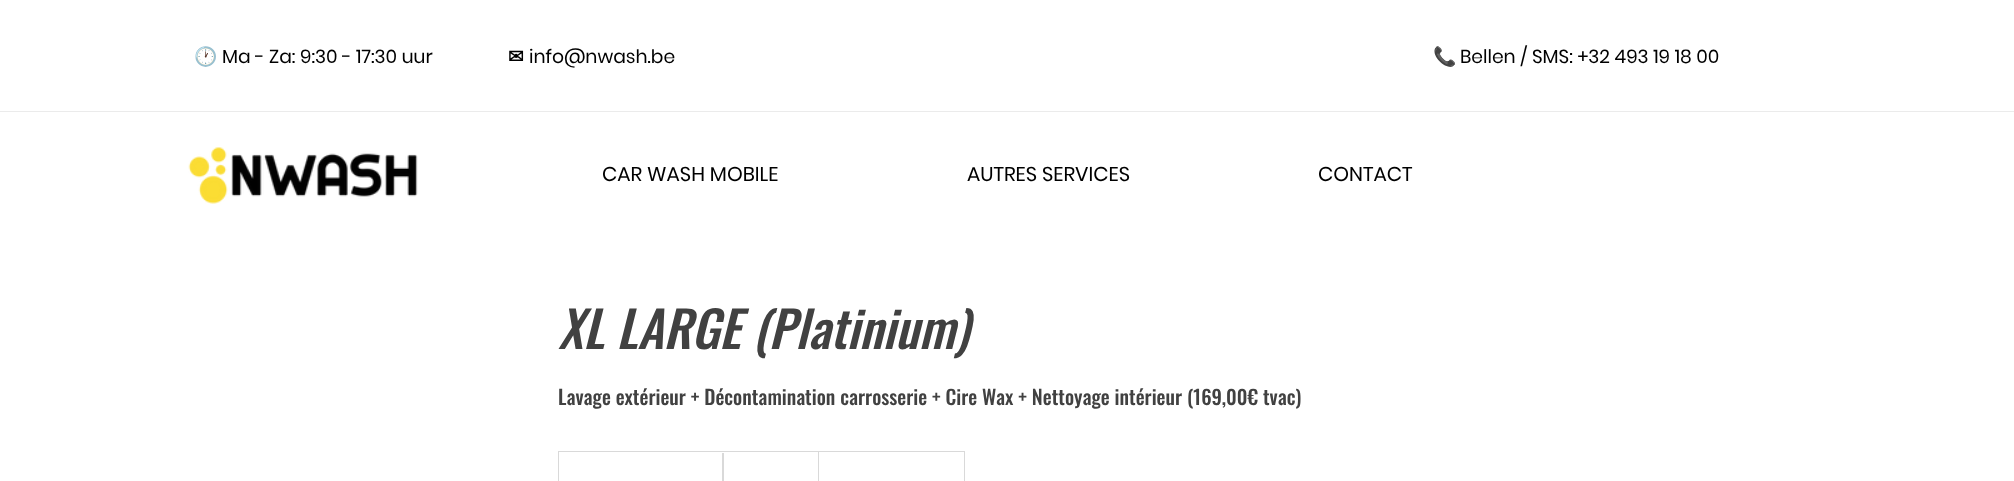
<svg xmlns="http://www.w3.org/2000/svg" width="2014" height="481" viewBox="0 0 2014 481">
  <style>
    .t1 { font: bold 18.75px Noto Color Emoji; fill: #000; }
    .t2 { font: 18.75px Poppins; fill: #000; }
    .t3 { font: bold 18.75px DejaVu Sans; fill: #000; }
    .t4 { font: 20px Poppins; fill: #000; }
    .t5 { font: italic 500 50px Oswald; fill: #414141; }
    .t6 { font: 500 20px Oswald; fill: #414141; }
  </style>
  <defs>
    <clipPath id="clip1"><rect x="559" y="453" width="405" height="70"/></clipPath>
  </defs>
  <rect width="100%" height="100%" fill="#fff"/>
  <text x="194" y="63" class="t1">🕐</text>
  <text x="222" y="63" class="t2">Ma - Za: 9:30 - 17:30 uur</text>
  <text x="508" y="63" class="t3">✉</text>
  <text x="529" y="63" class="t2">info@nwash.be</text>
  <text x="1433" y="63" class="t1">📞</text>
  <text x="1460" y="63" class="t2">Bellen / SMS: +32 493 19 18 00</text>
  <rect x="0" y="111" width="2014" height="1" fill="#ebebeb"/>
  <image x="188" y="147" width="230" height="57" href="images/1.png"/>
  <text x="602" y="181" class="t4">CAR WASH MOBILE</text>
  <text x="967" y="181" class="t4">AUTRES SERVICES</text>
  <text x="1318" y="181" class="t4">CONTACT</text>
  <text x="558" y="349" class="t5">XL LARGE (Platinium)</text>
  <text x="558" y="405" class="t6">Lavage extérieur + Décontamination carrosserie + Cire Wax + Nettoyage intérieur (169,00€ tvac)</text>
  <rect x="558.5" y="451.5" width="406" height="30" fill="none" stroke="#d9d9d9"/>
  <g clip-path="url(#clip1)">
    <path d="M722 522V451L724 452V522Z" fill="#d9d9d9"/>
  </g>
  <path d="M818 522V451L819 452V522Z" fill="#d9d9d9"/>
</svg>
